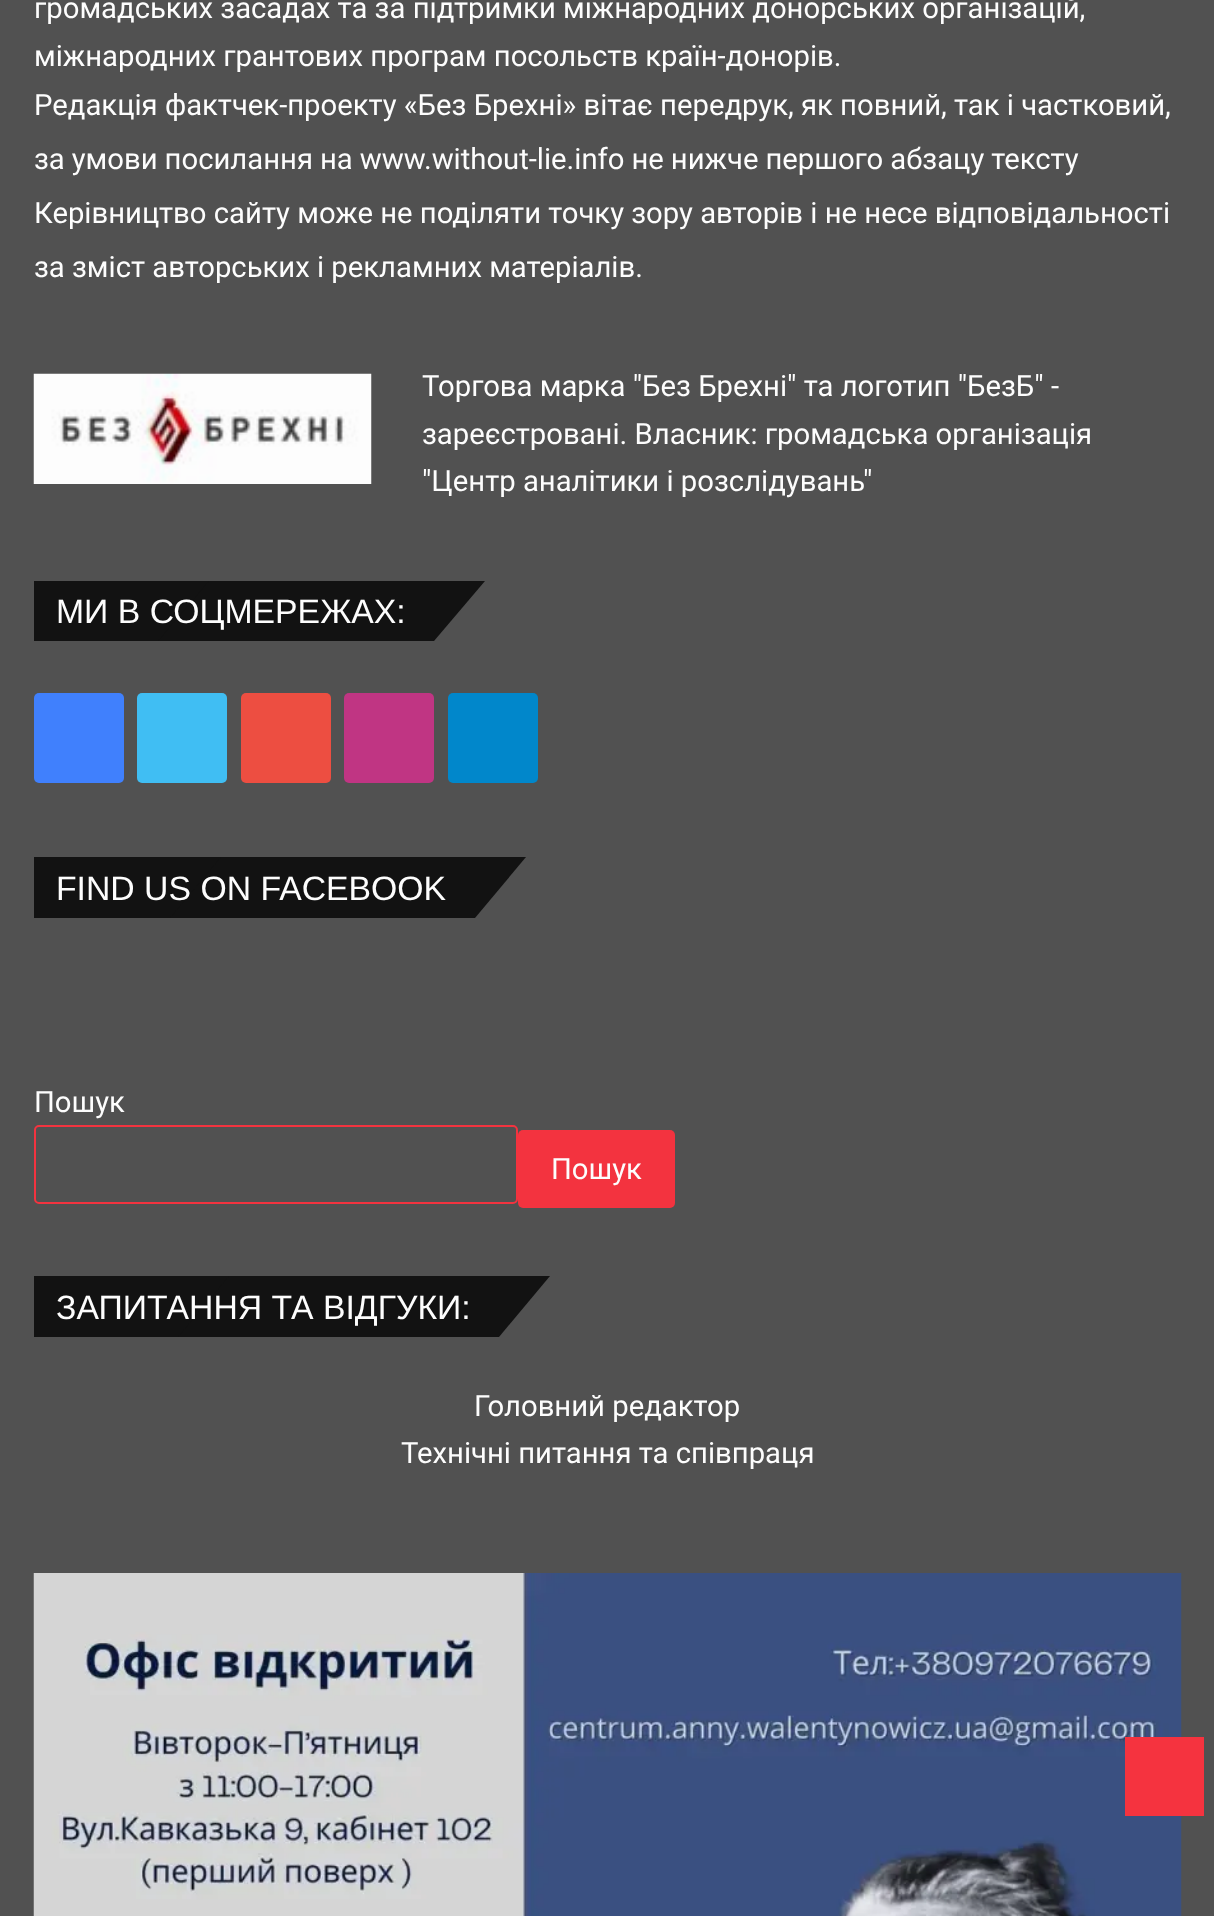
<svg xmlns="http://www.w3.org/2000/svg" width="1214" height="1916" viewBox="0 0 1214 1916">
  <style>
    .t1 { font: 29.25px Roboto; fill: #fdfdfd; }
    .t2 { font: 33.75px Liberation Sans; fill: #fdfdfd; }
  </style>
  <rect width="100%" height="100%" fill="#515151"/>
  <text x="34" y="18" class="t1">громадських засадах та за підтримки міжнародних донорських організацій,</text>
  <text x="34" y="66" class="t1">міжнародних грантових програм посольств країн-донорів.</text>
  <text x="34" y="115" class="t1">Редакція фактчек-проекту «Без Брехні» вітає передрук, як повний, так і частковий,</text>
  <text x="34" y="169" word-spacing="-0.25" class="t1">за умови посилання на www.without-lie.info не нижче першого абзацу тексту</text>
  <text x="34" y="223" class="t1">Керівництво сайту може не поділяти точку зору авторів і не несе відповідальності</text>
  <text x="34" y="277" class="t1">за зміст авторських і рекламних матеріалів.</text>
  <image x="33" y="373" width="339" height="111" href="images/1.png"/>
  <text x="422" y="396" class="t1">Торгова марка "Без Брехні" та логотип "БезБ" -</text>
  <text x="422" y="444" class="t1">зареєстровані. Власник: громадська організація</text>
  <text x="422" y="491" class="t1">"Центр аналітики і розслідувань"</text>
  <rect x="34" y="581" width="175" height="60" fill="#121212"/>
  <path d="M209 581H485L434 641H158Z" fill="#121212"/>
  <text x="56" y="623" class="t2">МИ В СОЦМЕРЕЖАХ:</text>
  <rect x="34" y="693" width="90" height="90" rx="5" fill="#4080fd"/>
  <rect x="137" y="693" width="90" height="90" rx="5" fill="#40bef3"/>
  <rect x="241" y="693" width="90" height="90" rx="5" fill="#ed4e41"/>
  <rect x="344" y="693" width="90" height="90" rx="5" fill="#c03583"/>
  <rect x="448" y="693" width="90" height="90" rx="5" fill="#0187cb"/>
  <rect x="34" y="857" width="187" height="61" fill="#121212"/>
  <path d="M221 857H526L475 918H170Z" fill="#121212"/>
  <text x="56" y="900" class="t2">FIND US ON FACEBOOK</text>
  <text x="34" y="1112" class="t1">Пошук</text>
  <rect x="35" y="1126" width="482" height="77" rx="4" fill="none" stroke="#f3333f" stroke-width="2"/>
  <rect x="518" y="1130" width="157" height="78" rx="5" fill="#f3333f"/>
  <text x="551" y="1179" class="t1">Пошук</text>
  <rect x="34" y="1276" width="195" height="61" fill="#121212"/>
  <path d="M229 1276H550L499 1337H178Z" fill="#121212"/>
  <text x="56" y="1319" class="t2">ЗАПИТАННЯ ТА ВІДГУКИ:</text>
  <text x="474" y="1416" class="t1">Головний редактор</text>
  <text x="401" y="1463" class="t1">Технічні питання та співпраця</text>
  <image x="33" y="1573" width="1149" height="343" href="images/2.png"/>
  <rect x="1125" y="1737" width="79" height="79" fill="#f5333f"/>
</svg>
